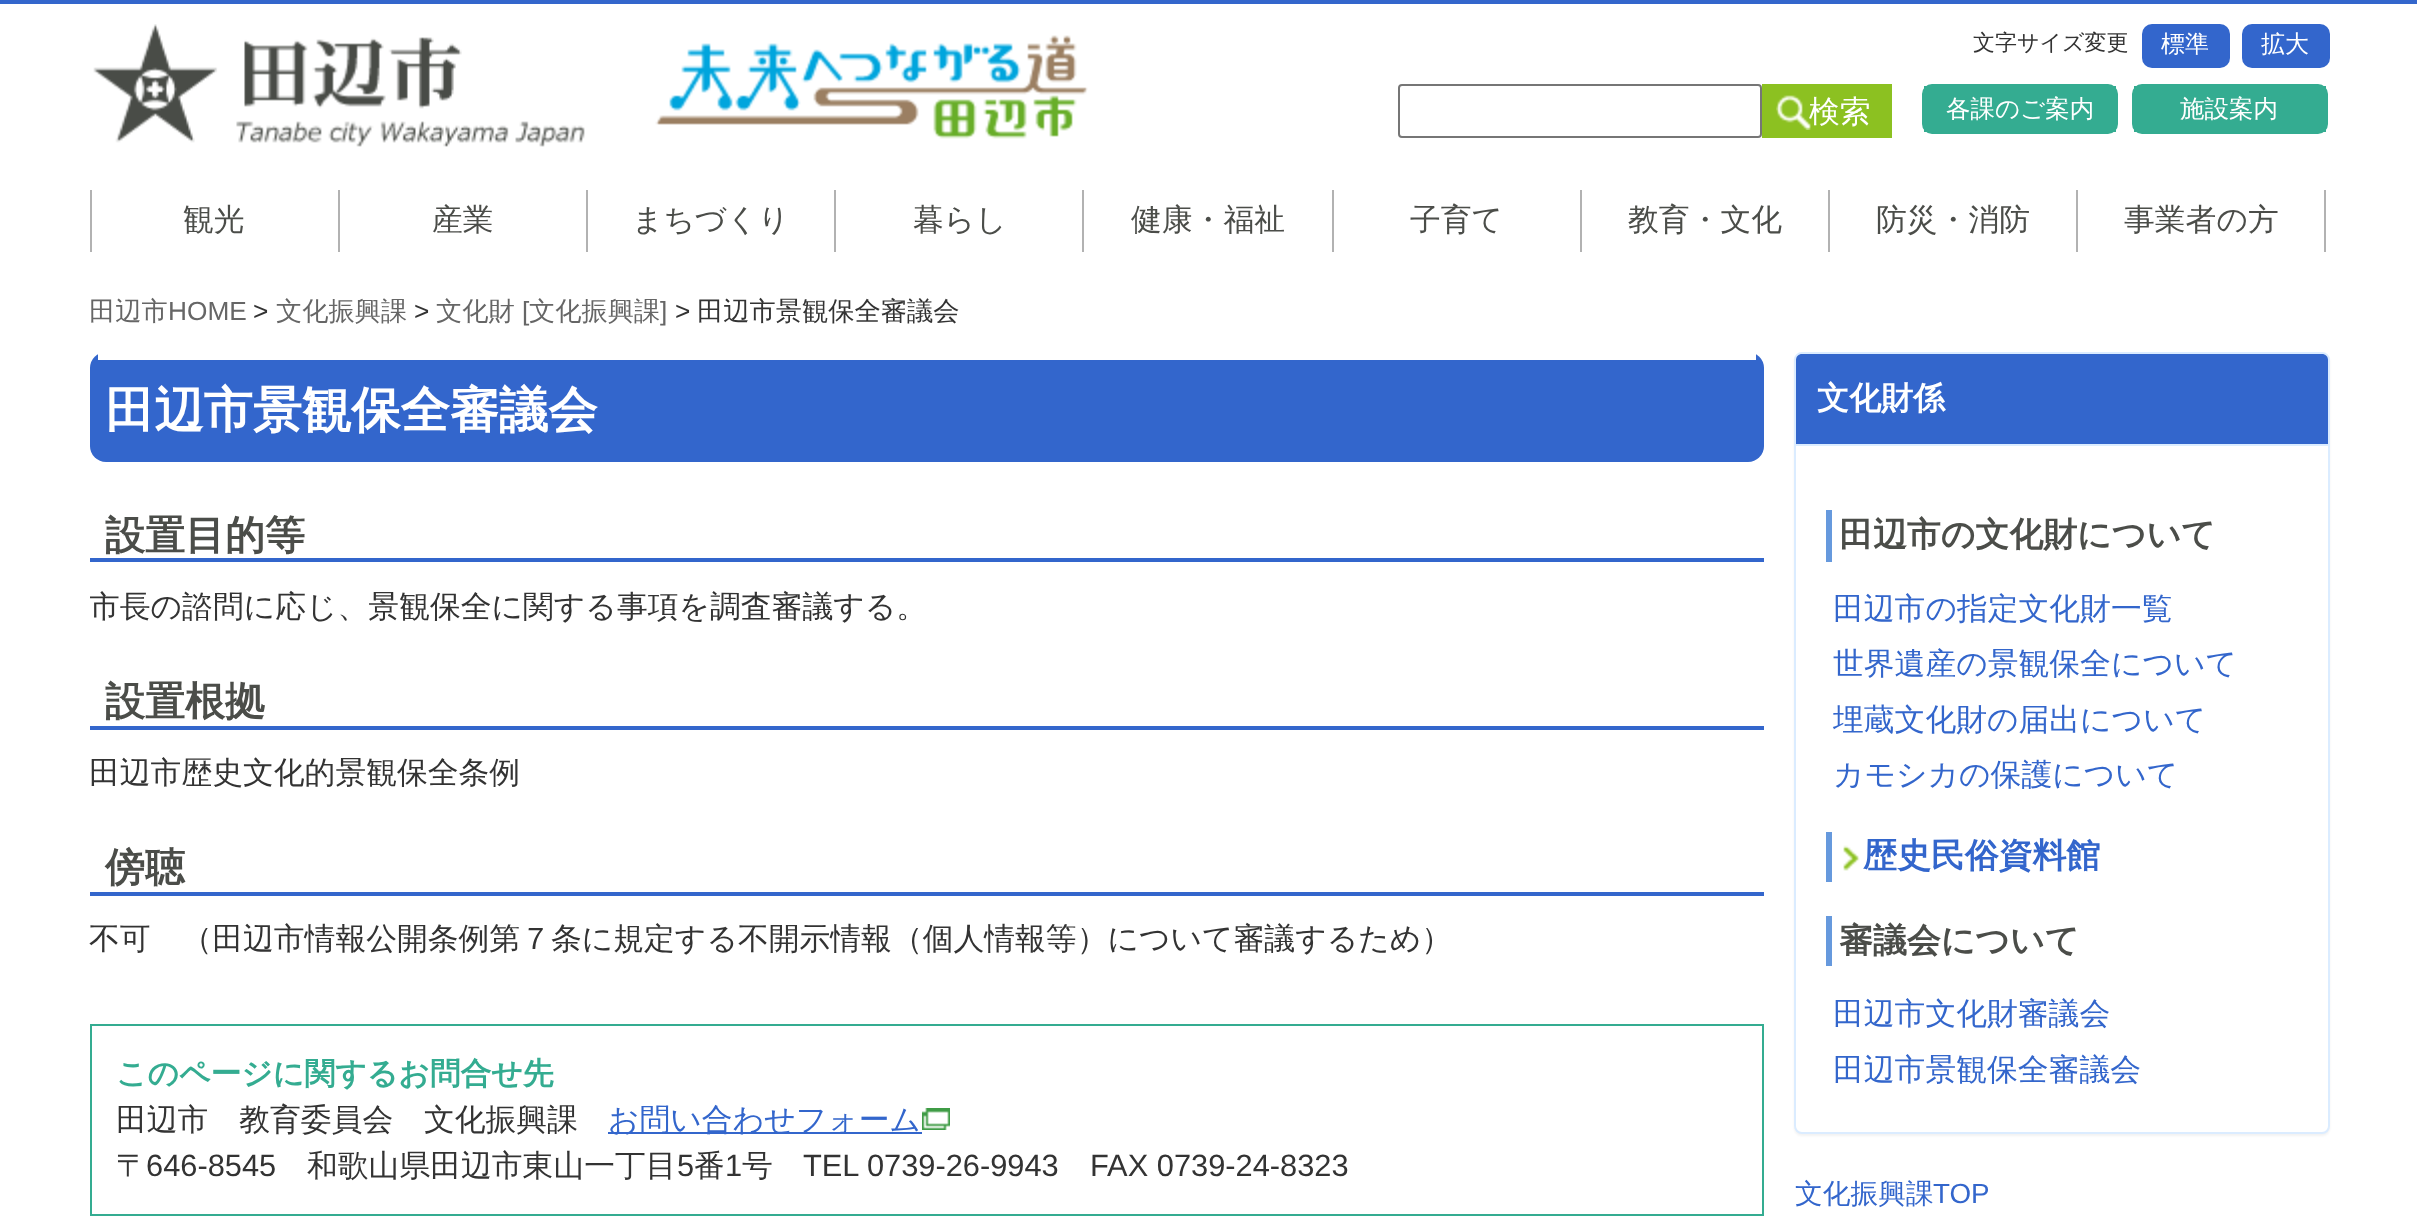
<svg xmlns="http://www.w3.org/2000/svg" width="2417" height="1230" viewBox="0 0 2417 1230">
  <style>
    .t1 { font: 500 22px WenQuanYi Zen Hei; fill: #333; }
    .t2 { font: 500 24px WenQuanYi Zen Hei; fill: #fff; }
    .t3 { font: 500 30.8px WenQuanYi Zen Hei; fill: #fff; }
    .t4 { font: 500 24.5px WenQuanYi Zen Hei; fill: #fff; }
    .t5 { font: 500 30.8px WenQuanYi Zen Hei; fill: #4b4d49; }
    .t6 { font: 500 26.25px WenQuanYi Zen Hei; fill: #666; }
    .t7 { font: 26.25px Liberation Sans; fill: #666; }
    .t8 { font: 26.25px Liberation Sans; fill: #333; }
    .t9 { font: 500 26.25px WenQuanYi Zen Hei; fill: #333; }
    .t10 { font: bold 49.25px WenQuanYi Zen Hei; fill: #fff; }
    .t11 { font: bold 40px WenQuanYi Zen Hei; fill: #4b4d49; }
    .t12 { font: 500 30.8px WenQuanYi Zen Hei; fill: #333; }
    .t13 { font: bold 30.8px WenQuanYi Zen Hei; fill: #34ac91; }
    .t14 { font: 500 30.8px WenQuanYi Zen Hei; fill: #36c; }
    .t15 { font: 30.8px Liberation Sans; fill: #333; }
    .t16 { font: bold 32px WenQuanYi Zen Hei; fill: #fff; }
    .t17 { font: bold 33.9px WenQuanYi Zen Hei; fill: #4b4d49; }
    .t18 { font: bold 33.9px WenQuanYi Zen Hei; fill: #36c; }
    .t19 { font: 500 27.75px WenQuanYi Zen Hei; fill: #36c; }
    .t20 { font: 27.75px Liberation Sans; fill: #36c; }
  </style>
  <defs>
    <clipPath id="clip1"><rect x="90" y="352" width="2240" height="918"/></clipPath>
  </defs>
  <rect width="100%" height="100%" fill="#fff"/>
  <rect x="0" y="0" width="2417" height="4" fill="#36c"/>
  <image x="93" y="24" width="492" height="123" href="images/1.png"/>
  <image x="655" y="35" width="433" height="104" href="images/2.png"/>
  <text x="1973" y="50" class="t1">文字サイズ変更</text>
  <rect x="2142" y="24" width="88" height="44" rx="10" fill="#36c"/>
  <text x="2161" y="52" class="t2">標準</text>
  <rect x="2242" y="24" width="88" height="44" rx="10" fill="#36c"/>
  <text x="2261" y="52" class="t2">拡大</text>
  <rect x="1399" y="85" width="362" height="52" rx="3" fill="none" stroke="#767676" stroke-width="2"/>
  <rect x="1762" y="84" width="130" height="54" fill="#8cc121"/>
  <image x="1776" y="95" width="35" height="35" href="images/3.png"/>
  <text x="1809" y="122" class="t3">検索</text>
  <rect x="1923" y="85" width="194" height="48" rx="9" fill="none" stroke="#34ac91" stroke-width="2"/>
  <rect x="1924" y="86" width="192" height="46" fill="#34ac91"/>
  <text x="1946" y="117" class="t4">各課のご案内</text>
  <rect x="2133" y="85" width="194" height="48" rx="9" fill="none" stroke="#34ac91" stroke-width="2"/>
  <rect x="2134" y="86" width="192" height="46" fill="#34ac91"/>
  <text x="2180" y="117" class="t4">施設案内</text>
  <rect x="90" y="190" width="2" height="62" fill="#b2b2b2"/>
  <rect x="338" y="190" width="2" height="62" fill="#b2b2b2"/>
  <text x="183" y="230" class="t5">観光</text>
  <rect x="586" y="190" width="2" height="62" fill="#b2b2b2"/>
  <text x="432" y="230" class="t5">産業</text>
  <rect x="834" y="190" width="2" height="62" fill="#b2b2b2"/>
  <text x="632" y="230" class="t5">まちづくり</text>
  <rect x="1082" y="190" width="2" height="62" fill="#b2b2b2"/>
  <text x="913" y="230" class="t5">暮らし</text>
  <rect x="1332" y="190" width="2" height="62" fill="#b2b2b2"/>
  <text x="1131" y="230" class="t5">健康・福祉</text>
  <rect x="1580" y="190" width="2" height="62" fill="#b2b2b2"/>
  <text x="1410" y="230" class="t5">子育て</text>
  <rect x="1828" y="190" width="2" height="62" fill="#b2b2b2"/>
  <text x="1628" y="230" class="t5">教育・文化</text>
  <rect x="2076" y="190" width="2" height="62" fill="#b2b2b2"/>
  <text x="1876" y="230" class="t5">防災・消防</text>
  <rect x="2324" y="190" width="2" height="62" fill="#b2b2b2"/>
  <text x="2124" y="230" class="t5">事業者の方</text>
  <text x="89" y="320" class="t6">田辺市</text>
  <text x="168" y="320" class="t7">HOME</text>
  <text x="253" y="320" class="t8">&gt;</text>
  <text x="276" y="320" class="t6">文化振興課</text>
  <text x="414" y="320" class="t8">&gt;</text>
  <text x="436" y="320" class="t6">文化財</text>
  <text x="522" y="320" class="t7">[</text>
  <text x="529" y="320" class="t6">文化振興課</text>
  <text x="660" y="320" class="t7">]</text>
  <text x="675" y="320" class="t8">&gt;</text>
  <text x="697" y="320" class="t9">田辺市景観保全審議会</text>
  <rect x="90" y="352" width="1674" height="110" rx="16" fill="#36c"/>
  <rect x="98" y="352" width="1658" height="8" fill="#fff"/>
  <text x="105" y="427" class="t10">田辺市景観保全審議会</text>
  <rect x="90" y="558" width="1674" height="4" fill="#36c"/>
  <text x="105" y="549" class="t11">設置目的等</text>
  <g clip-path="url(#clip1)">
    <text x="89" y="617" class="t12">市長の諮問に応じ、景観保全に関する事項を調査審議する。</text>
  </g>
  <rect x="90" y="726" width="1674" height="4" fill="#36c"/>
  <text x="105" y="715" class="t11">設置根拠</text>
  <text x="89" y="783" class="t12">田辺市歴史文化的景観保全条例</text>
  <rect x="90" y="892" width="1674" height="4" fill="#36c"/>
  <text x="105" y="881" class="t11">傍聴</text>
  <text x="89" y="949" class="t12">不可　（田辺市情報公開条例第７条に規定する不開示情報（個人情報等）について審議するため）</text>
  <rect x="91" y="1025" width="1672" height="190" fill="none" stroke="#34ac91" stroke-width="2"/>
  <text x="116" y="1084" class="t13">このページに関するお問合せ先</text>
  <text x="116" y="1130" class="t12">田辺市　教育委員会　文化振興課</text>
  <rect x="608" y="1132" width="314" height="2" fill="#36c"/>
  <text x="608" y="1130" class="t14">お問い合わせフォーム</text>
  <image x="922" y="1108" width="28" height="22" href="images/4.png"/>
  <text x="116" y="1176" class="t12">〒</text>
  <text x="146" y="1176" class="t15">646-8545</text>
  <text x="307" y="1176" class="t12">和歌山県田辺市東山一丁目</text>
  <text x="677" y="1176" class="t15">5</text>
  <text x="694" y="1176" class="t12">番</text>
  <text x="725" y="1176" class="t15">1</text>
  <text x="742" y="1176" class="t12">号</text>
  <text x="803" y="1176" class="t15">TEL 0739-26-9943</text>
  <text x="1090" y="1176" class="t15">FAX 0739-24-8323</text>
  <rect x="1794" y="354" width="536" height="782" rx="8" fill="#0000000d" filter="blur(1px)"/>
  <rect x="1795" y="353" width="534" height="780" rx="7" fill="#fff" stroke="#dbecff" stroke-width="2"/>
  <path d="M1802 354H2322C2325.5 354 2328 356.5 2328 360V446H1796V360C1796 356.5 1798.5 354 1802 354Z" fill="#36c"/>
  <rect x="1796" y="444" width="532" height="2" fill="#dbecff"/>
  <text x="1817" y="409" class="t16">文化財係</text>
  <rect x="1826" y="510" width="6" height="52" fill="#69d"/>
  <text x="1839" y="546" class="t17">田辺市の文化財について</text>
  <text x="1833" y="619" class="t14">田辺市の指定文化財一覧</text>
  <text x="1833" y="674" class="t14">世界遺産の景観保全について</text>
  <text x="1833" y="730" class="t14">埋蔵文化財の届出について</text>
  <text x="1833" y="785" class="t14">カモシカの保護について</text>
  <rect x="1826" y="832" width="6" height="50" fill="#69d"/>
  <image x="1843" y="845" width="17" height="26" href="images/5.png"/>
  <text x="1863" y="867" class="t18">歴史民俗資料館</text>
  <rect x="1826" y="916" width="6" height="50" fill="#69d"/>
  <text x="1839" y="952" class="t17">審議会について</text>
  <text x="1833" y="1024" class="t14">田辺市文化財審議会</text>
  <text x="1833" y="1080" class="t14">田辺市景観保全審議会</text>
  <text x="1795" y="1203" class="t19">文化振興課</text>
  <text x="1933" y="1203" class="t20">TOP</text>
</svg>
